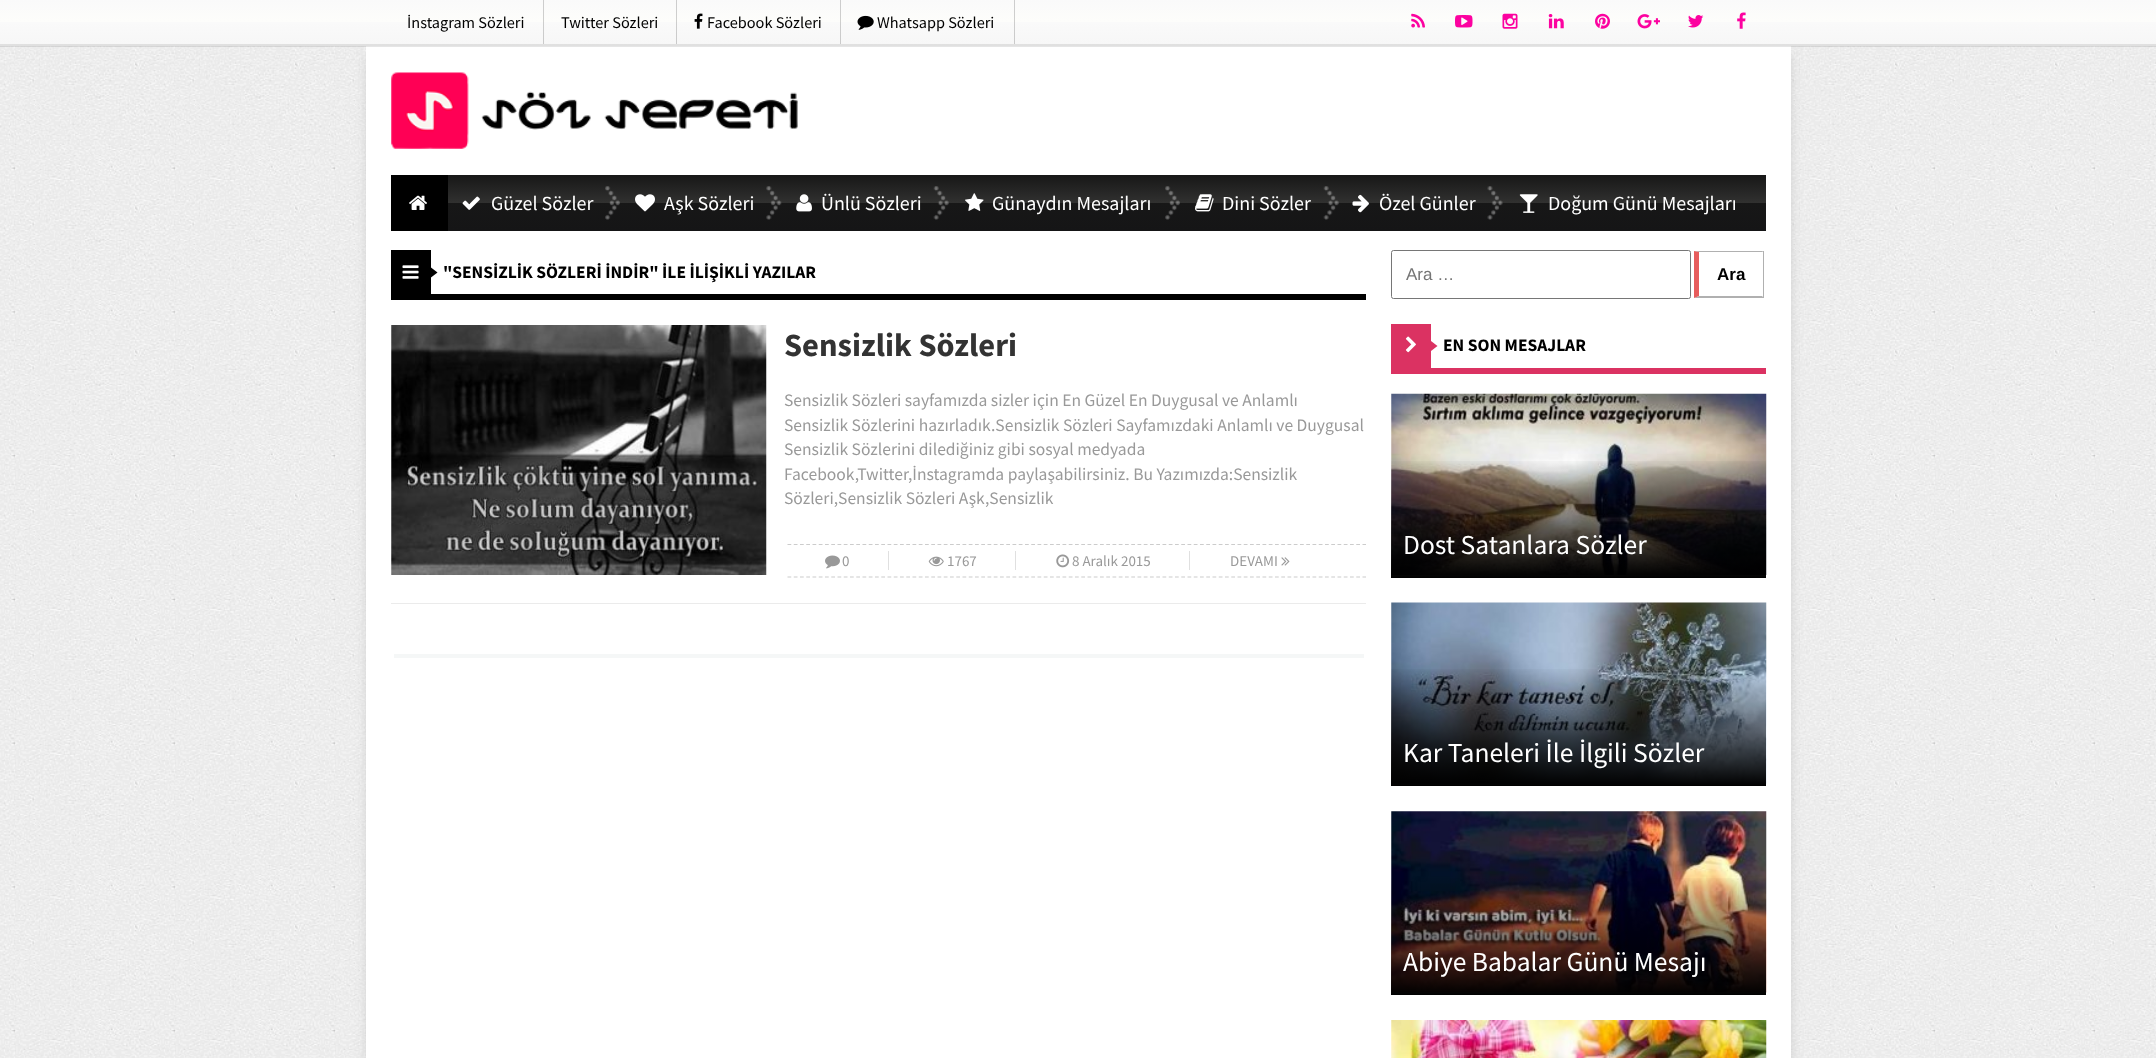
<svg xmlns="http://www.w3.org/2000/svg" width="2156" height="1058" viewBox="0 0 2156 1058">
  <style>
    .t1 { font: 16.25px Source Sans Pro; fill: #000; }
    .t2 { font: 20px Source Sans Pro; fill: #fff; }
    .t3 { font: bold 17.5px Source Sans Pro; fill: #000; }
    .t4 { font: bold 32.5px Source Sans Pro; fill: #333; }
    .t5 { font: 17.5px Source Sans Pro; fill: #999; }
    .t6 { font: 15px Source Sans Pro; fill: #999; }
    .t7 { font: 17px Liberation Sans; fill: #757575; }
    .t8 { font: bold 17px Liberation Sans; fill: #000; }
    .t9 { font: 27.5px Source Sans Pro; fill: #fff; }
  </style>
  <defs>
    <linearGradient id="g1" gradientUnits="userSpaceOnUse" x1="1078" y1="44" x2="1078" y2="0"><stop offset="0" stop-color="#f7f7f7"/><stop offset="0.5" stop-color="#fafafa"/><stop offset="0.5" stop-color="#fdfdfb"/><stop offset="1" stop-color="#fafafa"/></linearGradient>
    <linearGradient id="g2" gradientUnits="userSpaceOnUse" x1="1078" y1="88" x2="1078" y2="44"><stop offset="0" stop-color="#f7f6f7"/><stop offset="0.5" stop-color="#fafafa"/><stop offset="0.5" stop-color="#fdfcfb"/><stop offset="1" stop-color="#fafafa"/></linearGradient>
    <linearGradient id="g3" gradientUnits="userSpaceOnUse" x1="1079" y1="231" x2="1079" y2="175"><stop offset="0" stop-color="#151516"/><stop offset="0.5" stop-color="#171717"/><stop offset="0.5" stop-color="#313130"/><stop offset="1" stop-color="#171717"/></linearGradient>
    <linearGradient id="g4" gradientUnits="userSpaceOnUse" x1="1579" y1="458" x2="1579" y2="578"><stop offset="0" stop-color="#000" stop-opacity="0"/><stop offset="1" stop-color="#000"/></linearGradient>
    <linearGradient id="g5" gradientUnits="userSpaceOnUse" x1="1579" y1="666" x2="1579" y2="786"><stop offset="0" stop-color="#000" stop-opacity="0"/><stop offset="1" stop-color="#000"/></linearGradient>
    <linearGradient id="g6" gradientUnits="userSpaceOnUse" x1="1579" y1="875" x2="1579" y2="995"><stop offset="0" stop-color="#000" stop-opacity="0"/><stop offset="1" stop-color="#000"/></linearGradient>
  </defs>
  <rect width="100%" height="100%" fill="#fff"/>
  <image x="0" y="46" width="2156" height="1012" href="images/1.png"/>
  <rect x="368" y="55" width="1407" height="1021" fill="#c0c0c0cc" filter="blur(6px)"/>
  <rect x="383" y="55" width="1407" height="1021" fill="#c0c0c0cc" filter="blur(6px)"/>
  <rect x="0" y="0" width="2156" height="44" fill="url(#g1)"/>
  <rect x="0" y="44" width="2156" height="2" fill="url(#g2)"/>
  <rect x="366" y="46" width="1425" height="1012" fill="#fff"/>
  <rect x="0" y="44" width="2156" height="3" fill="#0000001a"/>
  <rect x="543" y="0" width="1" height="44" fill="#0000002e"/>
  <text x="407" y="28" class="t1">İnstagram Sözleri</text>
  <rect x="676" y="0" width="1" height="44" fill="#0000002e"/>
  <text x="561" y="28" class="t1">Twitter Sözleri</text>
  <rect x="840" y="0" width="1" height="44" fill="#0000002e"/>
  <image x="694" y="13" width="9" height="16" href="images/2.png"/>
  <text x="707" y="28" class="t1">Facebook Sözleri</text>
  <rect x="1014" y="0" width="1" height="44" fill="#0000002e"/>
  <image x="857" y="15" width="17" height="15" href="images/3.png"/>
  <text x="877" y="28" class="t1">Whatsapp Sözleri</text>
  <image x="1411" y="13" width="14" height="15" href="images/4.png"/>
  <image x="1455" y="15" width="18" height="13" href="images/5.png"/>
  <image x="1502" y="13" width="16" height="16" href="images/6.png"/>
  <image x="1548" y="14" width="16" height="15" href="images/7.png"/>
  <image x="1595" y="13" width="15" height="16" href="images/8.png"/>
  <image x="1637" y="14" width="23" height="15" href="images/9.png"/>
  <image x="1688" y="15" width="16" height="13" href="images/10.png"/>
  <image x="1737" y="12" width="9" height="17" href="images/11.png"/>
  <image x="391" y="72" width="407" height="77" href="images/12.png"/>
  <rect x="448" y="175" width="1318" height="56" fill="url(#g3)"/>
  <rect x="391" y="175" width="57" height="56" fill="#000"/>
  <image x="409" y="195" width="18" height="15" href="images/13.png"/>
  <image x="605" y="186" width="15" height="34" href="images/14.png"/>
  <image x="462" y="196" width="18" height="14" href="images/15.png"/>
  <text x="491" y="210" class="t2">Güzel Sözler</text>
  <image x="766" y="186" width="16" height="34" href="images/16.png"/>
  <image x="635" y="194" width="20" height="18" href="images/17.png"/>
  <text x="664" y="210" class="t2">Aşk Sözleri</text>
  <image x="933" y="186" width="16" height="34" href="images/18.png"/>
  <image x="796" y="194" width="16" height="18" href="images/19.png"/>
  <text x="821" y="210" class="t2">Ünlü Sözleri</text>
  <image x="1165" y="186" width="15" height="34" href="images/20.png"/>
  <image x="965" y="193" width="19" height="18" href="images/21.png"/>
  <text x="992" y="210" class="t2">Günaydın Mesajları</text>
  <image x="1323" y="186" width="16" height="34" href="images/22.png"/>
  <image x="1195" y="194" width="19" height="18" href="images/23.png"/>
  <text x="1222" y="210" class="t2">Dini Sözler</text>
  <image x="1487" y="186" width="16" height="34" href="images/24.png"/>
  <image x="1352" y="194" width="17" height="19" href="images/25.png"/>
  <text x="1379" y="210" class="t2">Özel Günler</text>
  <image x="1519" y="194" width="19" height="19" href="images/26.png"/>
  <text x="1548" y="210" class="t2">Doğum Günü Mesajları</text>
  <rect x="394" y="654" width="970" height="4" fill="#f5f7f7"/>
  <rect x="391" y="294" width="975" height="6" fill="#000"/>
  <rect x="391" y="250" width="40" height="44" fill="#000"/>
  <image x="402" y="265" width="17" height="14" href="images/27.png"/>
  <path d="M431 277.5V267.5L437.5 272.5Z" fill="#000"/>
  <text x="443" y="278" class="t3">"SENSİZLİK SÖZLERİ İNDİR" İLE İLİŞİKLİ YAZILAR</text>
  <rect x="391" y="603" width="975" height="1" fill="#ebebeb"/>
  <image x="391" y="325" width="376" height="250" href="images/28.png"/>
  <text x="784" y="356" class="t4">Sensizlik Sözleri</text>
  <text x="784" y="406" class="t5">Sensizlik Sözleri sayfamızda sizler için En Güzel En Duygusal ve Anlamlı</text>
  <text x="784" y="431" class="t5">Sensizlik Sözlerini hazırladık.Sensizlik Sözleri Sayfamızdaki Anlamlı ve Duygusal</text>
  <text x="784" y="455" class="t5">Sensizlik Sözlerini dilediğiniz gibi sosyal medyada</text>
  <text x="784" y="480" class="t5">Facebook,Twitter,İnstagramda paylaşabilirsiniz. Bu Yazımızda:Sensizlik</text>
  <text x="784" y="504" class="t5">Sözleri,Sensizlik Sözleri Aşk,Sensizlik</text>
  <path d="M787.5 544.5H1366" fill="none" stroke="#ccc" stroke-width="1.2" stroke-dasharray="3.75 2.5"/>
  <path d="M787.5 577H1366" fill="none" stroke="#ccc" stroke-width="1.2" stroke-dasharray="3.75 2.5"/>
  <rect x="888" y="551" width="1" height="19" fill="#e0e0e0"/>
  <image x="825" y="555" width="15" height="14" href="images/29.png"/>
  <text x="842" y="566" class="t6">0</text>
  <rect x="1015" y="551" width="1" height="19" fill="#e0e0e0"/>
  <image x="928" y="556" width="16" height="11" href="images/30.png"/>
  <text x="947" y="566" class="t6">1767</text>
  <rect x="1189" y="551" width="1" height="19" fill="#e0e0e0"/>
  <image x="1056" y="554" width="14" height="14" href="images/31.png"/>
  <text x="1072" y="566" class="t6">8 Aralık 2015</text>
  <text x="1230" y="566" class="t6">DEVAMI</text>
  <image x="1281" y="557" width="9" height="9" href="images/32.png"/>
  <rect x="1391.5" y="250.5" width="299" height="48" rx="2" fill="none" stroke="#767676"/>
  <text x="1406" y="280" class="t7">Ara …</text>
  <path d="M1694 251H1764L1762 252H1699Z" fill="#b0b0b0"/>
  <rect x="1763" y="251" width="1" height="47" fill="#b0b0b0"/>
  <path d="M1764 298H1694L1699 296H1762Z" fill="#b0b0b0"/>
  <path d="M1694 298V251L1699 252V296Z" fill="#e75c5c"/>
  <text x="1717" y="280" class="t8">Ara</text>
  <rect x="1391" y="368" width="375" height="6" fill="#db3262"/>
  <rect x="1391" y="324" width="40" height="44" fill="#db3262"/>
  <image x="1405" y="336" width="11" height="17" href="images/33.png"/>
  <path d="M1431 351V341L1437.5 346Z" fill="#db3262"/>
  <text x="1443" y="351" class="t3">EN SON MESAJLAR</text>
  <image x="1391" y="393" width="376" height="182" href="images/34.png"/>
  <rect x="1391" y="461" width="375" height="117" fill="url(#g4)"/>
  <text x="1403" y="554" class="t9">Dost Satanlara Sözler</text>
  <image x="1391" y="602" width="376" height="182" href="images/35.png"/>
  <rect x="1391" y="669" width="375" height="117" fill="url(#g5)"/>
  <text x="1403" y="762" class="t9">Kar Taneleri İle İlgili Sözler</text>
  <image x="1391" y="811" width="376" height="182" href="images/36.png"/>
  <rect x="1391" y="878" width="375" height="117" fill="url(#g6)"/>
  <text x="1403" y="971" class="t9">Abiye Babalar Günü Mesajı</text>
  <image x="1391" y="1020" width="376" height="38" href="images/37.png"/>
</svg>
